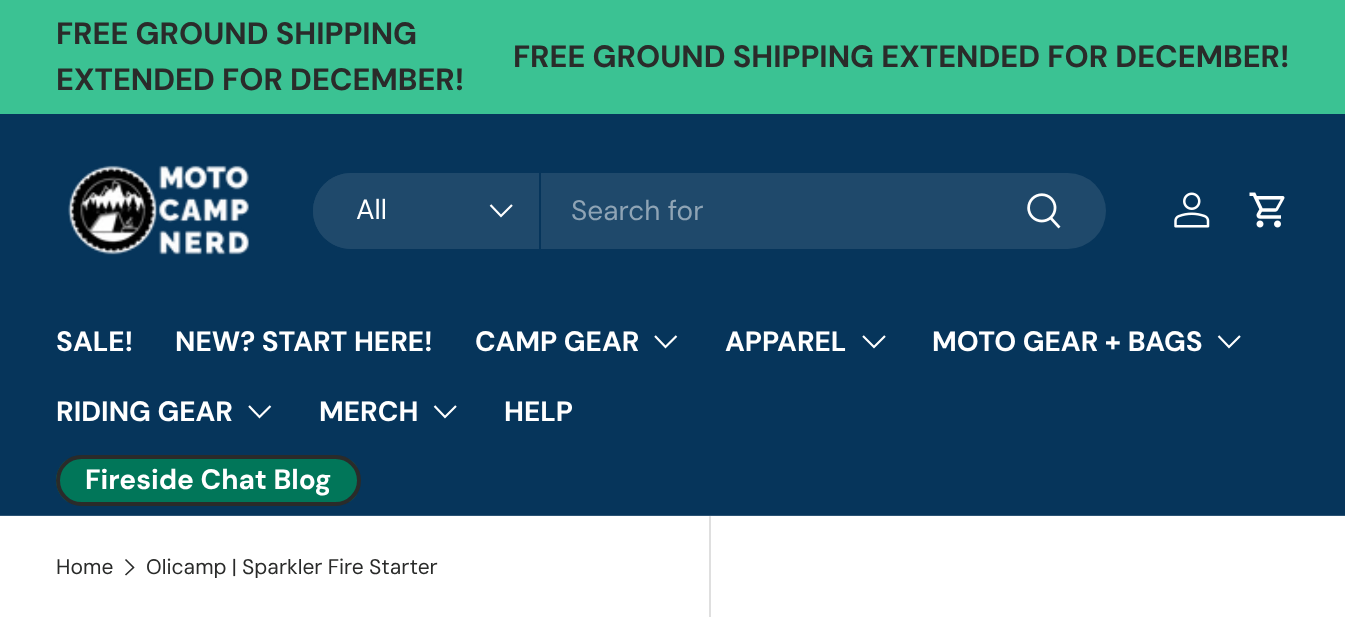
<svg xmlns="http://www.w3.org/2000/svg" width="1345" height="617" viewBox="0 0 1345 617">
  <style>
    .t1 { font: bold 30.8px 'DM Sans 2'; fill: #2a2b2a; }
    .t2 { font: 28px 'DM Sans 2'; fill: #fff; }
    .t3 { font: 28px 'DM Sans 2'; fill: #8fa4b5; }
    .t4 { font: bold 28px DM Sans; fill: #fff; }
    .t5 { font: 21px DM Sans; fill: #2a2b2a; }
  </style>
  <defs>
    <clipPath id="clip1"><rect x="56" y="455" width="305" height="51" rx="25.5"/></clipPath>
    <linearGradient id="g1" gradientUnits="userSpaceOnUse" x1="-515" y1="374" x2="336" y2="586"><stop offset="0.6" stop-color="#2a977c"/><stop offset="0.6" stop-color="#017659"/><stop offset="1" stop-color="#017659"/></linearGradient>
    <clipPath id="clip2"><rect x="147" y="557" width="292" height="21"/></clipPath>
  </defs>
  <rect width="100%" height="100%" fill="#fff"/>
  <rect x="0" y="0" width="1345" height="114" fill="#3bc293"/>
  <text x="56" y="44" class="t1">FREE GROUND SHIPPING</text>
  <text x="56" y="90" class="t1">EXTENDED FOR DECEMBER!</text>
  <text x="513" y="67" class="t1">FREE GROUND SHIPPING EXTENDED FOR DECEMBER!</text>
  <rect x="0" y="114" width="1345" height="401" fill="#06355b"/>
  <rect x="0" y="515" width="1345" height="1" fill="#2b5374"/>
  <image x="68" y="165" width="181" height="90" href="images/1.png"/>
  <rect x="313" y="173" width="793" height="76" rx="38" fill="#1f496b"/>
  <path d="M351 173H541V249H351C330 249 313 232 313 211C313 190 330 173 351 173Z" fill="#1f496b"/>
  <rect x="539" y="173" width="2" height="76" fill="#06355b"/>
  <text x="356" y="219" class="t2">All</text>
  <path d="M512 205L501 216L490.5 205" fill="none" stroke="#fff" stroke-width="2.2"/>
  <text x="571" y="220" class="t3">Search for</text>
  <image x="1027" y="193" width="34" height="36" href="images/2.png"/>
  <image x="1174" y="192" width="36" height="36" href="images/3.png"/>
  <image x="1249" y="192" width="36" height="36" href="images/4.png"/>
  <text x="56" y="351" class="t4">SALE!</text>
  <text x="175" y="351" class="t4">NEW? START HERE!</text>
  <text x="475" y="351" class="t4">CAMP GEAR</text>
  <path d="M676.5 336L665.5 347L655 336" fill="none" stroke="#fff" stroke-width="2.2"/>
  <text x="725" y="351" class="t4">APPAREL</text>
  <path d="M885 336L874 347L863 336" fill="none" stroke="#fff" stroke-width="2.2"/>
  <text x="932" y="351" class="t4">MOTO GEAR + BAGS</text>
  <path d="M1240 336L1229 347L1218.5 336" fill="none" stroke="#fff" stroke-width="2.2"/>
  <text x="56" y="421" class="t4">RIDING GEAR</text>
  <path d="M270.5 406L259.5 417L249 406" fill="none" stroke="#fff" stroke-width="2.2"/>
  <text x="319" y="421" class="t4">MERCH</text>
  <path d="M456 406L445 417L434.5 406" fill="none" stroke="#fff" stroke-width="2.2"/>
  <text x="504" y="421" class="t4">HELP</text>
  <g clip-path="url(#clip1)">
    <rect x="56" y="459" width="301" height="43" fill="url(#g1)"/>
  </g>
  <rect x="58" y="457" width="301" height="47" rx="23.5" fill="none" stroke="#2a2b2a" stroke-width="4"/>
  <text x="85" y="489" class="t4">Fireside Chat Blog</text>
  <text x="56" y="574" class="t5">Home</text>
  <path d="M125.5 559.5L133.5 567.5L125.5 575" fill="none" stroke="#2a2b2a" stroke-width="1.6"/>
  <g clip-path="url(#clip2)">
    <text x="146" y="574" word-spacing="-0.5" class="t5">Olicamp | Sparkler Fire Starter</text>
  </g>
  <rect x="709" y="516" width="2" height="101" fill="#dfdfdf"/>
  <rect x="709" y="516" width="2" height="1" fill="#e4e4e4"/>
</svg>
